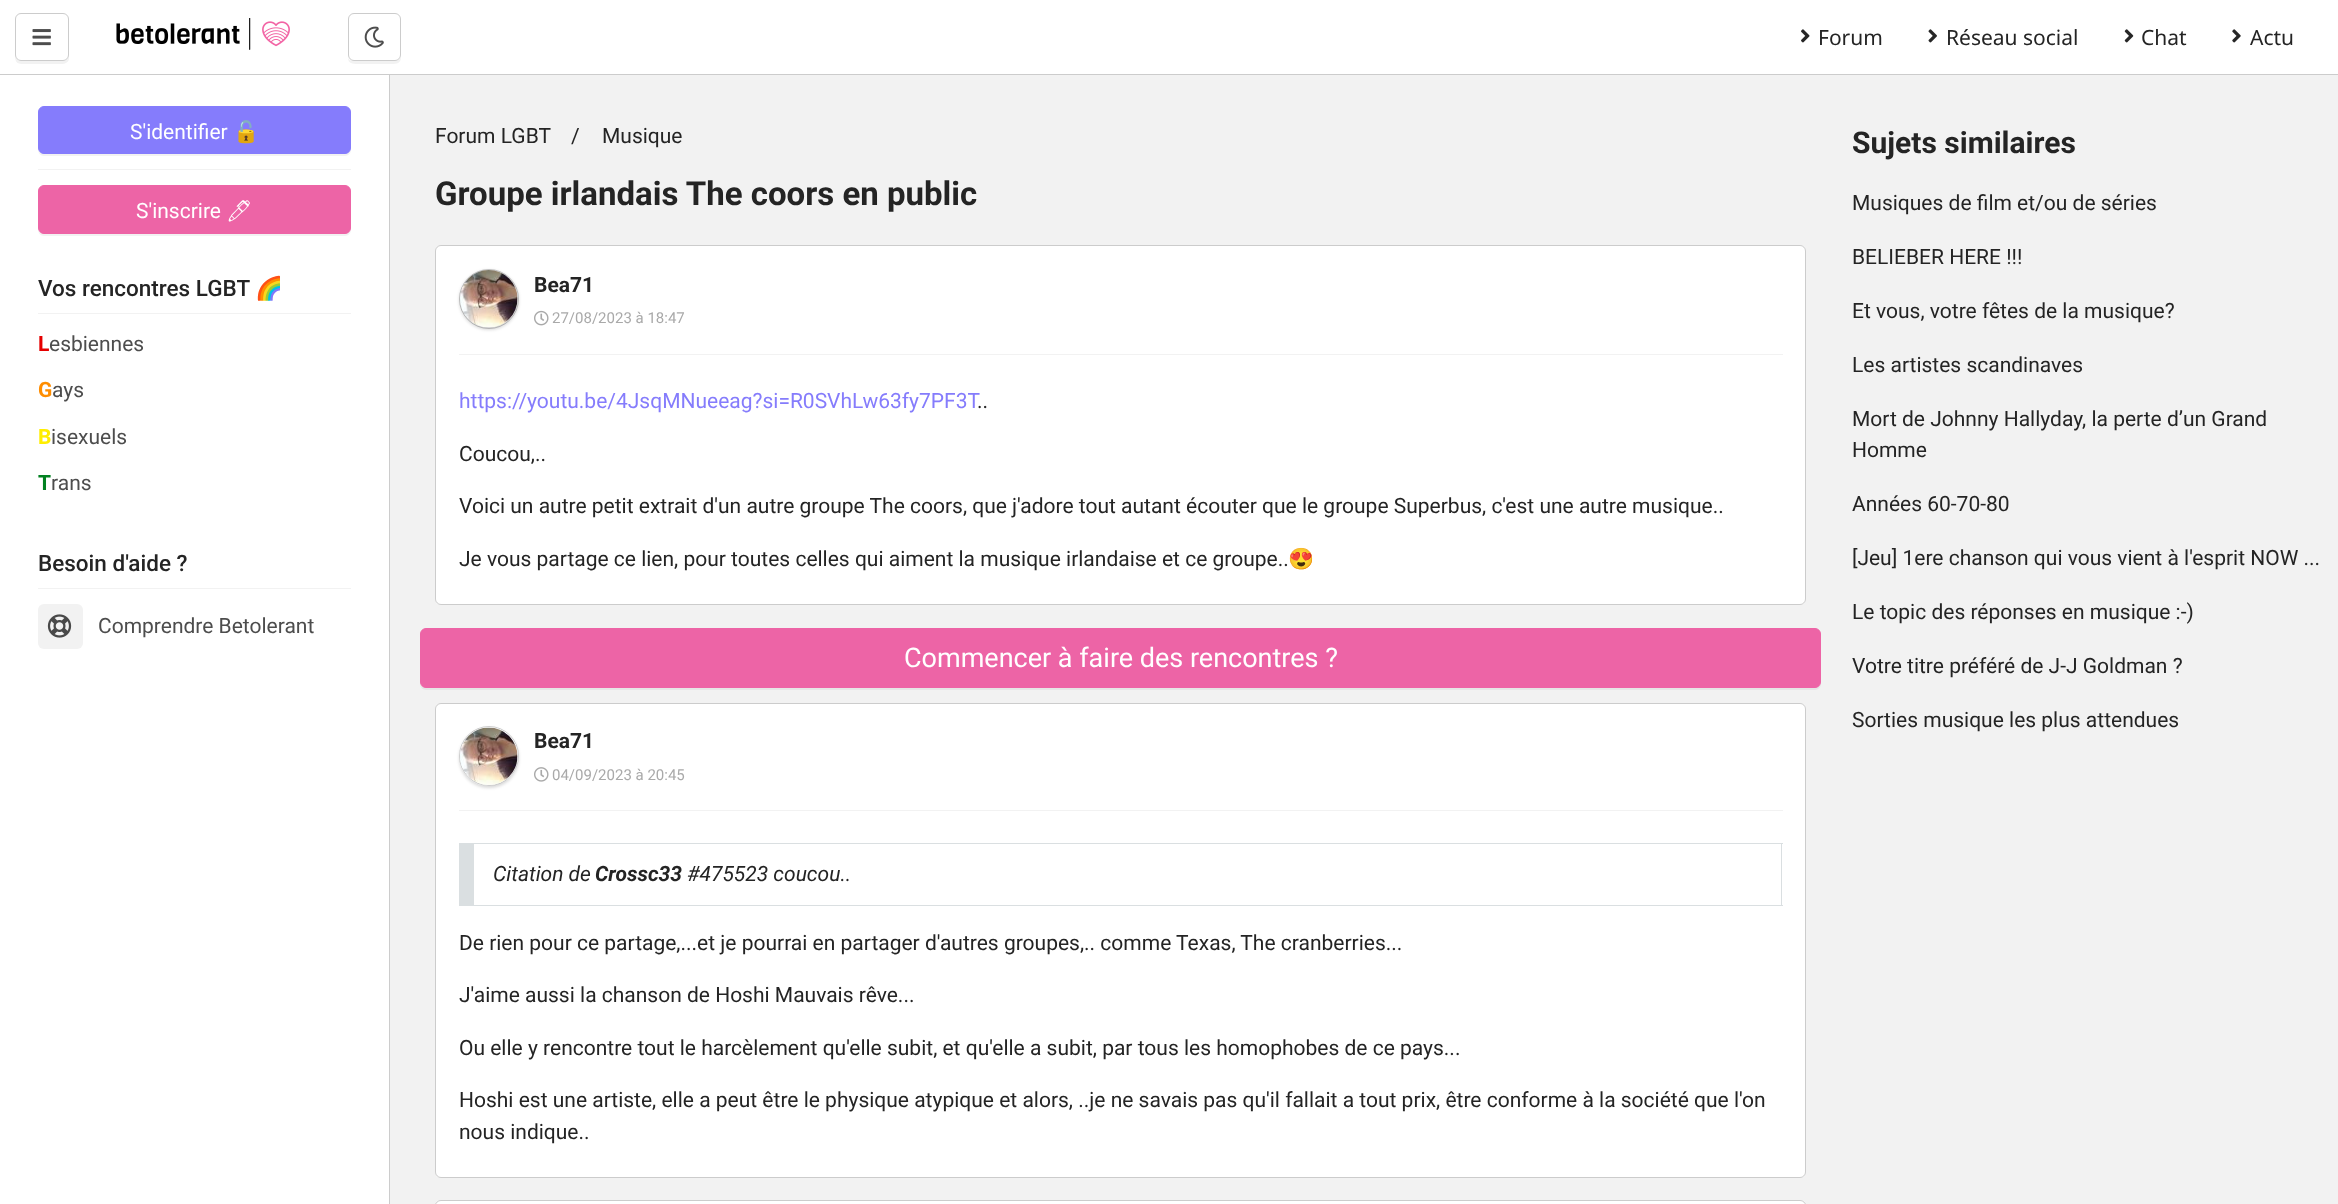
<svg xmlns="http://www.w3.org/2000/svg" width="2338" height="1204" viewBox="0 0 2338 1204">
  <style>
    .t1 { font: 21px Noto Sans; fill: #242424; }
    .t2 { font: 21px Roboto; fill: #fff; }
    .t3 { font: 21px Noto Color Emoji; fill: #fff; }
    .t4 { font: 21px Noto Emoji; fill: #fff; }
    .t5 { font: 500 22.5px Roboto; fill: #242424; }
    .t6 { font: 22.5px Noto Color Emoji; fill: #242424; }
    .t7 { font: bold 21px Roboto; fill: #e50000; }
    .t8 { font: 21px Roboto; fill: #4d4d4d; }
    .t9 { font: bold 21px Roboto; fill: #ff8d00; }
    .t10 { font: bold 21px Roboto; fill: #fe0; }
    .t11 { font: bold 21px Roboto; fill: #028121; }
    .t12 { font: 21px Roboto; fill: #242424; }
    .t13 { font: bold 33px Roboto; fill: #242424; }
    .t14 { font: bold 21px Roboto; fill: #242424; }
    .t15 { font: 15px Roboto; fill: #a9a9a9; }
    .t16 { font: 21px Roboto; fill: #857cfc; }
    .t17 { font: 21px Noto Color Emoji; fill: #242424; }
    .t18 { font: 27px Roboto; fill: #fff; }
    .t19 { font: italic 21px Roboto; fill: #242424; }
    .t20 { font: italic bold 21px Roboto; fill: #242424; }
    .t21 { font: bold 30px Roboto; fill: #242424; }
  </style>
  <defs>
    <clipPath id="clip1"><path d="M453 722H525V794H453ZM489 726C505.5 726 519 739.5 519 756C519 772.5 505.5 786 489 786C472.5 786 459 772.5 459 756C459 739.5 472.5 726 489 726Z" clip-rule="evenodd"/></clipPath>
  </defs>
  <rect width="100%" height="100%" fill="#f2f2f2"/>
  <rect x="0" y="0" width="2338" height="74" fill="#fff"/>
  <rect x="0" y="74" width="2338" height="1" fill="#ccc"/>
  <path d="M15 55C15 65 19 64 28 64H56C60 64 68 65 69 59V19V55C69 59 66 61 63 61H21C18 61 15 59 15 55Z" fill="#f2f2f2"/>
  <rect x="15.5" y="13.5" width="53" height="47" rx="5.5" fill="#fff" stroke="#ccc"/>
  <image x="32" y="29" width="19" height="17" href="images/1.png"/>
  <image x="116" y="18" width="174" height="32" href="images/2.png"/>
  <path d="M348 58C348 65 356 64 361 64H388C394 64 401 65 401 57C400 59 398 61 395 61H354C351 61 349 60 348 58Z" fill="#f2f2f2"/>
  <rect x="348.5" y="13.5" width="52" height="47" rx="5.5" fill="#fff" stroke="#ccc"/>
  <image x="364" y="26" width="20" height="22" href="images/3.png"/>
  <image x="1801" y="29" width="9" height="14" href="images/4.png"/>
  <text x="1818" y="45" class="t1">Forum</text>
  <image x="1928" y="29" width="9" height="14" href="images/5.png"/>
  <text x="1946" y="45" class="t1">Réseau social</text>
  <image x="2124" y="29" width="10" height="14" href="images/6.png"/>
  <text x="2141" y="45" class="t1">Chat</text>
  <image x="2232" y="29" width="9" height="14" href="images/7.png"/>
  <text x="2250" y="45" class="t1">Actu</text>
  <rect x="0" y="75" width="389" height="1129" fill="#fff"/>
  <rect x="389" y="75" width="1" height="1129" fill="#ccc"/>
  <path d="M38 150C38 153 41 156 44 156H345C348 156 351 153 351 150V149C350 152 348 154 345 154H44C41 154 39 152 38 150Z" fill="#f2f2f2"/>
  <rect x="38.5" y="106.5" width="312" height="47" rx="5.5" fill="#857cfc" stroke="#857cfc"/>
  <text x="130" y="139" class="t2">S'identifier</text>
  <text x="233" y="139" class="t3">🔓</text>
  <rect x="38" y="169" width="313" height="1" fill="#f2f2f2"/>
  <path d="M38 230C38 233 41 236 44 236H345C348 236 351 233 351 230V229C350 232 348 234 345 234H44C41 234 39 232 38 230Z" fill="#f2f2f2"/>
  <rect x="38.5" y="185.5" width="312" height="48" rx="5.5" fill="#ed64a6" stroke="#ed64a6"/>
  <text x="136" y="218" class="t2">S'inscrire</text>
  <text x="226" y="218" class="t4">🖊</text>
  <text x="38" y="296" class="t5">Vos rencontres LGBT</text>
  <text x="255" y="296" class="t6">🌈</text>
  <rect x="38" y="313" width="313" height="1" fill="#f2f2f2"/>
  <text x="38" y="351" class="t7">L</text>
  <text x="49" y="351" class="t8">esbiennes</text>
  <text x="38" y="397" class="t9">G</text>
  <text x="52" y="397" class="t8">ays</text>
  <text x="38" y="444" class="t10">B</text>
  <text x="51" y="444" class="t8">isexuels</text>
  <text x="38" y="490" class="t11">T</text>
  <text x="51" y="490" class="t8">rans</text>
  <text x="38" y="571" class="t5">Besoin d'aide ?</text>
  <rect x="38" y="588" width="313" height="1" fill="#f2f2f2"/>
  <rect x="38" y="604" width="45" height="45" rx="6" fill="#f2f2f2"/>
  <image x="47" y="614" width="25" height="24" href="images/8.png"/>
  <text x="98" y="633" class="t8">Comprendre Betolerant</text>
  <text x="435" y="143" class="t12">Forum LGBT</text>
  <text x="571" y="143" class="t12">/</text>
  <text x="602" y="143" class="t12">Musique</text>
  <text x="435" y="205" class="t13">Groupe irlandais The coors en public</text>
  <rect x="435" y="245" width="1371" height="360" rx="6" fill="#fff"/>
  <rect x="435.5" y="245.5" width="1370" height="359" rx="5.5" fill="none" stroke="#00000033"/>
  <rect x="459" y="270" width="60" height="60" rx="30" fill="#00000026" filter="blur(1.5px)"/>
  <circle cx="489" cy="299" r="29.5" fill="none" stroke="#00000033"/>
  <image x="460" y="270" width="58" height="57" href="images/9.png"/>
  <text x="534" y="292" class="t14">Bea71</text>
  <image x="534" y="310" width="15" height="16" href="images/10.png"/>
  <text x="552" y="323" class="t15">27/08/2023 à 18:47</text>
  <rect x="459" y="354" width="1324" height="1" fill="#f2f2f2"/>
  <text x="459" y="408" class="t16">https://youtu.be/4JsqMNueeag?si=R0SVhLw63fy7PF3T</text>
  <text x="977" y="408" class="t12">..</text>
  <text x="459" y="461" class="t12">Coucou,..</text>
  <text x="459" y="513" class="t12">Voici un autre petit extrait d'un autre groupe The coors, que j'adore tout autant écouter que le groupe Superbus, c'est une autre musique..</text>
  <text x="459" y="566" class="t12">Je vous partage ce lien, pour toutes celles qui aiment la musique irlandaise et ce groupe..</text>
  <text x="1288" y="566" class="t17">😍</text>
  <path d="M420 682V684C420 687 423 690 426 690H1815C1818 690 1821 687 1821 684V683C1820 686 1818 688 1815 688H426C423 688 420 685 420 682Z" fill="#e6e6e6"/>
  <rect x="420.5" y="628.5" width="1400" height="59" rx="5.5" fill="#ed64a6" stroke="#ed64a6"/>
  <text x="904" y="667" class="t18">Commencer à faire des rencontres ?</text>
  <rect x="435" y="703" width="1371" height="475" rx="6" fill="#fff"/>
  <rect x="435.5" y="703.5" width="1370" height="474" rx="5.5" fill="none" stroke="#00000033"/>
  <g clip-path="url(#clip1)">
    <rect x="459" y="728" width="60" height="60" rx="30" fill="#00000026" filter="blur(1.5px)"/>
  </g>
  <circle cx="489" cy="756" r="29.5" fill="none" stroke="#00000033"/>
  <image x="460" y="727" width="58" height="58" href="images/11.png"/>
  <text x="534" y="748" class="t14">Bea71</text>
  <image x="534" y="767" width="15" height="15" href="images/12.png"/>
  <text x="552" y="780" class="t15">04/09/2023 à 20:45</text>
  <rect x="459" y="810" width="1324" height="1" fill="#f2f2f2"/>
  <rect x="474" y="843" width="1309" height="1" fill="#dadfe1"/>
  <rect x="1781" y="843" width="1" height="63" fill="#dadfe1"/>
  <rect x="474" y="905" width="1309" height="1" fill="#dadfe1"/>
  <rect x="459" y="843" width="15" height="63" fill="#dadfe1"/>
  <text x="493" y="881" class="t19">Citation de</text>
  <text x="595" y="881" class="t20">Crossc33</text>
  <text x="687" y="881" class="t19">#475523 coucou..</text>
  <text x="459" y="950" class="t12">De rien pour ce partage,...et je pourrai en partager d'autres groupes,.. comme Texas, The cranberries...</text>
  <text x="459" y="1002" class="t12">J'aime aussi la chanson de Hoshi Mauvais rêve...</text>
  <text x="459" y="1055" class="t12">Ou elle y rencontre tout le harcèlement qu'elle subit, et qu'elle a subit, par tous les homophobes de ce pays...</text>
  <text x="459" y="1107" class="t12">Hoshi est une artiste, elle a peut être le physique atypique et alors, ..je ne savais pas qu'il fallait a tout prix, être conforme à la société que l'on</text>
  <text x="459" y="1139" class="t12">nous indique..</text>
  <path d="M441 1200H1800C1803.5 1200 1806 1202.5 1806 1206V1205H435V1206C435 1202.5 437.5 1200 441 1200Z" fill="#fff"/>
  <rect x="435.5" y="1200.5" width="1370" height="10" rx="5.5" fill="none" stroke="#00000033"/>
  <text x="1852" y="153" class="t21">Sujets similaires</text>
  <text x="1852" y="210" class="t12">Musiques de film et/ou de séries</text>
  <text x="1852" y="264" class="t12">BELIEBER HERE !!!</text>
  <text x="1852" y="318" class="t12">Et vous, votre fêtes de la musique?</text>
  <text x="1852" y="372" class="t12">Les artistes scandinaves</text>
  <text x="1852" y="426" class="t12">Mort de Johnny Hallyday, la perte d’un Grand</text>
  <text x="1852" y="457" class="t12">Homme</text>
  <text x="1852" y="511" class="t12">Années 60-70-80</text>
  <text x="1852" y="565" class="t12">[Jeu] 1ere chanson qui vous vient à l'esprit NOW ...</text>
  <text x="1852" y="619" class="t12">Le topic des réponses en musique :-)</text>
  <text x="1852" y="673" class="t12">Votre titre préféré de J-J Goldman ?</text>
  <text x="1852" y="727" class="t12">Sorties musique les plus attendues</text>
</svg>
